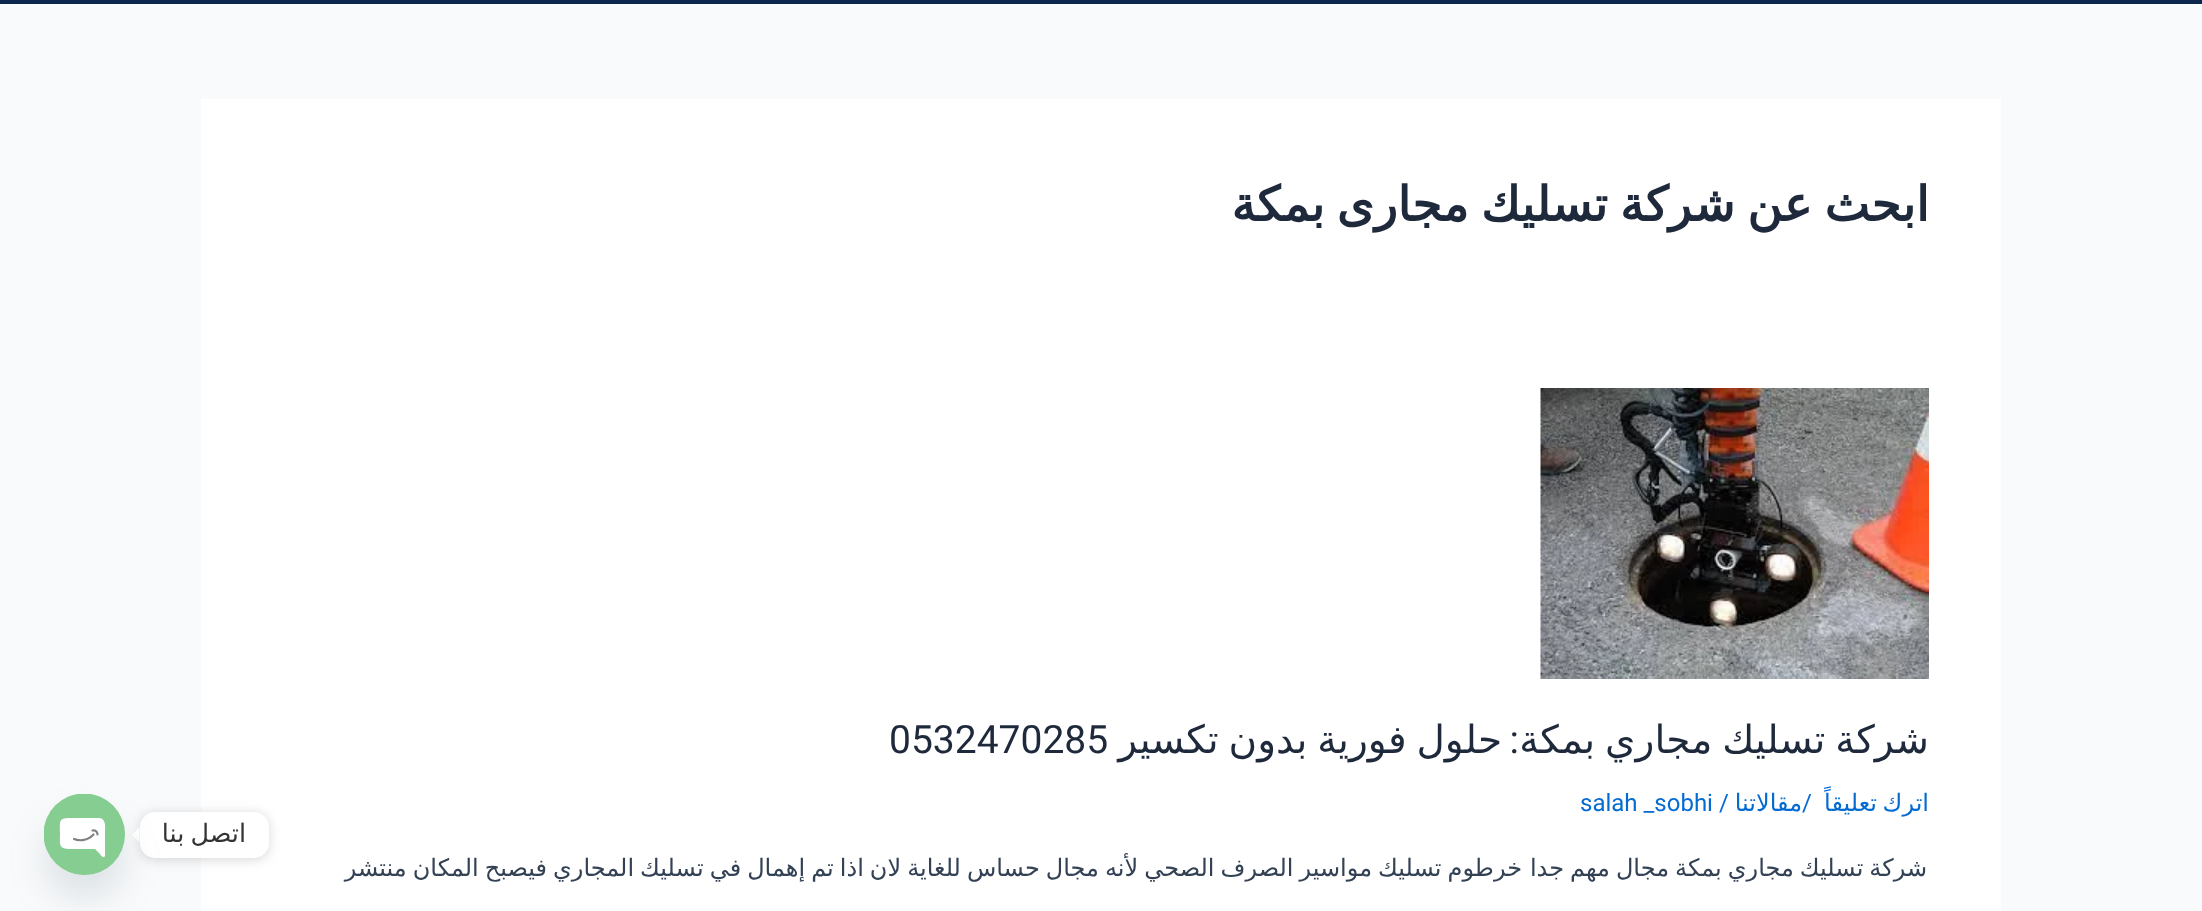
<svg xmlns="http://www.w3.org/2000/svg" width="2202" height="911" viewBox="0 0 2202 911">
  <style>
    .t1 { font: bold 48px DejaVu Sans; direction: rtl; fill: #1e293b; }
    .t2 { font: 39px DejaVu Sans; direction: rtl; fill: #1e293b; }
    .t3 { font: 39px Roboto; direction: rtl; fill: #1e293b; }
    .t4 { font: 39px Roboto; fill: #1e293b; }
    .t5 { font: 24px DejaVu Sans; direction: rtl; fill: #046bd2; }
    .t6 { font: 24px Roboto; fill: #046bd2; }
    .t7 { font: 24px DejaVu Sans; direction: rtl; fill: #334155; }
    .t8 { font: 25.5px DejaVu Sans; direction: rtl; fill: #333; }
  </style>
  <defs>
    <clipPath id="clip1"><rect x="273" y="389" width="1656" height="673"/></clipPath>
    <clipPath id="clip2"><rect x="44" y="794" width="81" height="81"/></clipPath>
  </defs>
  <rect width="100%" height="100%" fill="#f9fafb"/>
  <rect x="0" y="0" width="2202" height="4" fill="#0d264e"/>
  <rect x="201" y="99" width="1800" height="812" fill="#fff"/>
  <text x="1929" y="221" word-spacing="-3.25" class="t1">ابحث عن شركة تسليك مجارى بمكة</text>
  <image x="1540" y="388" width="389" height="291" href="images/1.png"/>
  <g clip-path="url(#clip1)">
    <text x="1929" y="753" word-spacing="-2.5" class="t2">شركة تسليك مجاري بمكة</text>
  </g>
  <text x="1519" y="753" class="t3">:</text>
  <text x="1502" y="753" word-spacing="-2.5" class="t2">حلول فورية بدون تكسير</text>
  <text x="889" y="753" class="t4">0532470285</text>
  <text x="1929" y="811" word-spacing="-2" class="t5">اترك تعليقاً</text>
  <text x="1802" y="811" class="t6">/</text>
  <text x="1802" y="811" class="t5">مقالاتنا</text>
  <text x="1719" y="811" class="t6">/</text>
  <text x="1580" y="811" class="t6">salah _sobhi</text>
  <text x="1522" y="876" word-spacing="-1.6" class="t7">خرطوم تسليك مواسير الصرف الصحي لأنه مجال حساس للغاية لان اذا تم إهمال في تسليك المجاري فيصبح المكان منتشر</text>
  <g clip-path="url(#clip1)">
    <text x="1927" y="876" word-spacing="-1.6" class="t7">شركة تسليك مجاري بمكة مجال مهم جدا</text>
  </g>
  <rect x="140" y="813" width="129" height="47" rx="15" fill="#00000026" filter="blur(6px)"/>
  <rect x="140" y="812" width="129" height="46" rx="15" fill="#fff"/>
  <text x="246" y="842" word-spacing="-2" class="t8">اتصل بنا</text>
  <path d="M139.5 827V842L132 835Z" fill="#fff"/>
  <rect x="44" y="818" width="81" height="81" rx="40.5" fill="#49687e29" filter="blur(18px)"/>
  <circle cx="84.5" cy="834.5" r="40.5" fill="#86cd91"/>
  <g clip-path="url(#clip2)">
    <circle cx="84" cy="834" r="40.5" fill="#86cd91"/>
  </g>
  <path d="M99 818H71C58 818 60 821 60 833C60 845 58 849 71 849H95L100 854C100 855 104 859 105 856V834C105 830 107 818 99 818Z" fill="#fff"/>
  <path d="M74 839C77.5 840.5 86.5 842 93.5 834.5M97.5 834.5C97.5 833 96.5 829.5 92.5 830.5" fill="none" stroke="#808080" stroke-width="2.2" stroke-linecap="round" stroke-linejoin="round"/>
</svg>
